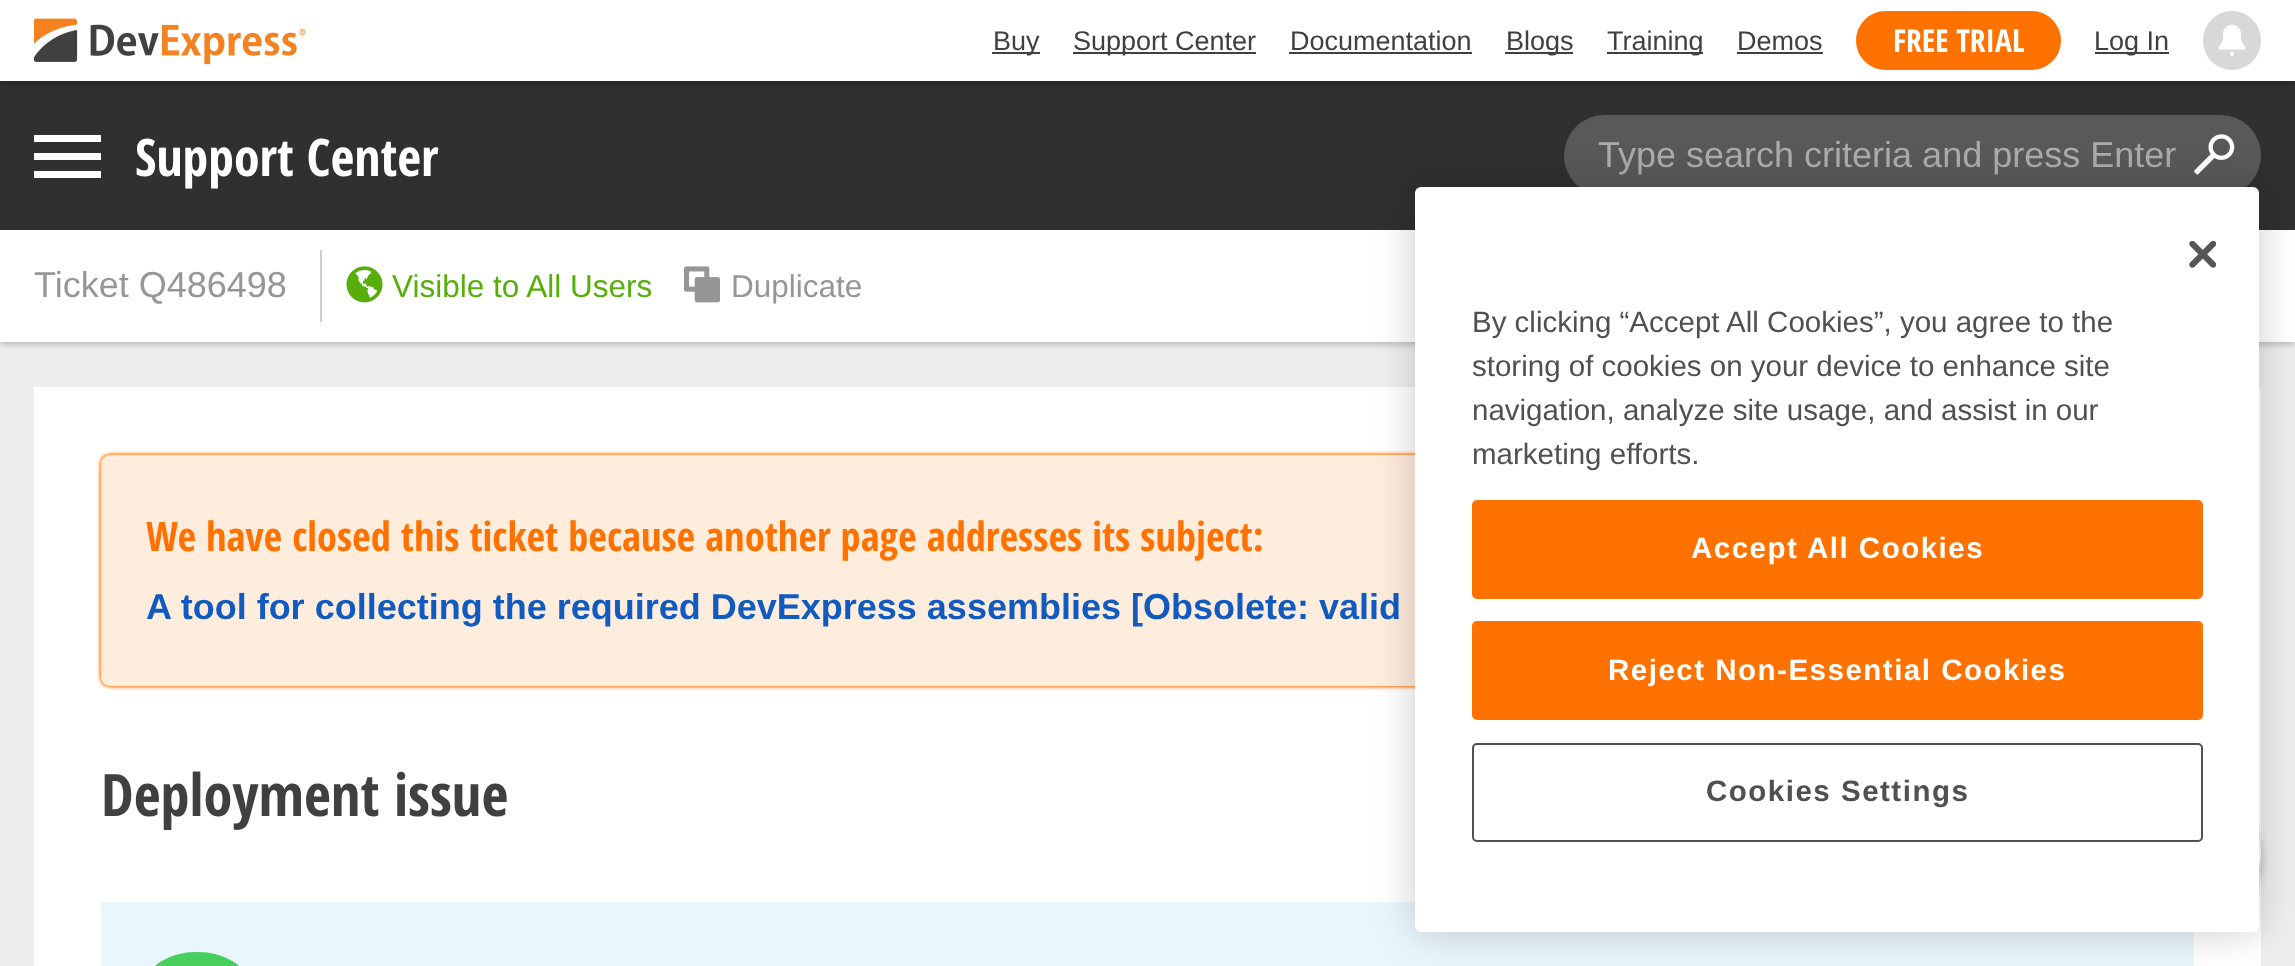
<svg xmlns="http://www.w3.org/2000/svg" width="2295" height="966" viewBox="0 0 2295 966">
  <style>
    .t1 { font: 27px Liberation Sans; fill: #404040; }
    .t2 { font: bold 31.5px 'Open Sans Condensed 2'; fill: #fff; }
    .t3 { font: bold 51.75px 'Open Sans Condensed 2'; fill: #fff; }
    .t4 { font: 36px Liberation Sans; fill: #acacac; }
    .t5 { font: 36px Liberation Sans; fill: #969696; }
    .t6 { font: 31.5px Liberation Sans; fill: #57ad09; }
    .t7 { font: 31.5px Liberation Sans; fill: #969696; }
    .t8 { font: bold 40.5px Open Sans Condensed; fill: #ff7200; }
    .t9 { font: bold 36px Liberation Sans; fill: #115bc0; }
    .t10 { font: bold 58.5px Open Sans Condensed; fill: #404040; }
    .t11 { font: 29.5px Liberation Sans; fill: #505050; }
    .t12 { font: bold 29.5px Liberation Sans; letter-spacing: 1.5px; fill: #fff; }
    .t13 { font: bold 29.5px Liberation Sans; letter-spacing: 1.5px; fill: #505050; }
  </style>
  <rect width="100%" height="100%" fill="#eee"/>
  <rect x="0" y="232" width="2295" height="112" fill="#00000040" filter="blur(3.5px)"/>
  <rect x="0" y="81" width="2295" height="149" fill="#303030"/>
  <rect x="0" y="2" width="2295" height="81" fill="#00000040" filter="blur(3.5px)"/>
  <rect x="0" y="0" width="2295" height="81" fill="#fff"/>
  <image x="34" y="18" width="272" height="47" href="images/1.png"/>
  <rect x="992" y="52" width="48" height="2" fill="#404040"/>
  <text x="993" y="50" class="t1">Buy</text>
  <rect x="1073" y="52" width="183" height="2" fill="#404040"/>
  <text x="1073" y="50" class="t1">Support Center</text>
  <text x="1290" y="50" class="t1">Documentation</text>
  <rect x="1289" y="52" width="183" height="2" fill="#404040"/>
  <rect x="1505" y="52" width="68" height="2" fill="#404040"/>
  <text x="1506" y="50" class="t1">Blogs</text>
  <rect x="1607" y="52" width="96" height="2" fill="#404040"/>
  <text x="1607" y="50" class="t1">Training</text>
  <text x="1737" y="50" class="t1">Demos</text>
  <rect x="1737" y="52" width="86" height="2" fill="#404040"/>
  <rect x="1858.5" y="13.5" width="200" height="54" rx="27" fill="#ff7200" stroke="#ff7200" stroke-width="5"/>
  <text x="1893" y="52" class="t2">FREE TRIAL</text>
  <rect x="2095" y="52" width="74" height="2" fill="#404040"/>
  <text x="2094" y="50" class="t1">Log In</text>
  <rect x="2203" y="11" width="58" height="59" rx="29" fill="#d8d8d8"/>
  <image x="2218" y="24" width="28" height="32" href="images/2.png"/>
  <rect x="34" y="135" width="67" height="7" fill="#fff"/>
  <rect x="34" y="153" width="67" height="7" fill="#fff"/>
  <rect x="34" y="171" width="67" height="7" fill="#fff"/>
  <text x="135" y="176" class="t3">Support Center</text>
  <rect x="1564" y="115" width="697" height="81" rx="40.5" fill="#595959"/>
  <text x="1598" y="167" class="t4">Type search criteria and press Enter</text>
  <image x="2194" y="134" width="41" height="41" href="images/3.png"/>
  <rect x="0" y="230" width="2295" height="112" fill="#fff"/>
  <text x="34" y="297" class="t5">Ticket Q486498</text>
  <rect x="320" y="250" width="2" height="72" fill="#cfcfcf"/>
  <image x="346" y="266" width="37" height="37" href="images/4.png"/>
  <text x="392" y="297" class="t6">Visible to All Users</text>
  <image x="684" y="266" width="36" height="37" href="images/5.png"/>
  <text x="731" y="297" class="t7">Duplicate</text>
  <rect x="34" y="387" width="2227" height="579" fill="#fff"/>
  <rect x="101" y="455" width="2093" height="231" rx="9" fill="#ff7200" filter="blur(2px)"/>
  <rect x="101" y="455" width="2093" height="231" rx="9" fill="#ff7200" filter="blur(2px)"/>
  <rect x="101" y="455" width="2093" height="231" rx="9" fill="#feecdd"/>
  <text x="146" y="551" class="t8">We have closed this ticket because another page addresses its subject:</text>
  <text x="146" y="619" class="t9">A tool for collecting the required DevExpress assemblies [Obsolete: valid</text>
  <text x="101" y="816" class="t10">Deployment issue</text>
  <rect x="101" y="902" width="2093" height="64" fill="#e9f6fc"/>
  <rect x="146" y="952" width="102" height="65" rx="50.5" fill="#47ce5c"/>
  <rect x="2135" y="797" width="126" height="126" rx="63" fill="#00000040" filter="blur(4.5px)"/>
  <circle cx="2198" cy="853" r="63" fill="#fff"/>
  <rect x="1415" y="187" width="844" height="745" rx="6" fill="#00000033" filter="blur(20px)"/>
  <rect x="1415" y="187" width="844" height="745" rx="6" fill="#fff"/>
  <image x="2189" y="241" width="27" height="27" href="images/6.png"/>
  <text x="1472" y="332" class="t11">By clicking “Accept All Cookies”, you agree to the</text>
  <text x="1472" y="376" class="t11">storing of cookies on your device to enhance site</text>
  <text x="1472" y="420" class="t11">navigation, analyze site usage, and assist in our</text>
  <text x="1472" y="464" class="t11">marketing efforts.</text>
  <rect x="1473" y="501" width="729" height="97" rx="4" fill="#ff7200" stroke="#ff7200" stroke-width="2"/>
  <text x="1691" y="558" class="t12">Accept All Cookies</text>
  <rect x="1473" y="622" width="729" height="97" rx="4" fill="#ff7200" stroke="#ff7200" stroke-width="2"/>
  <text x="1608" y="680" class="t12">Reject Non-Essential Cookies</text>
  <rect x="1473" y="744" width="729" height="97" rx="4" fill="none" stroke="#505050" stroke-width="2"/>
  <text x="1706" y="801" class="t13">Cookies Settings</text>
</svg>
